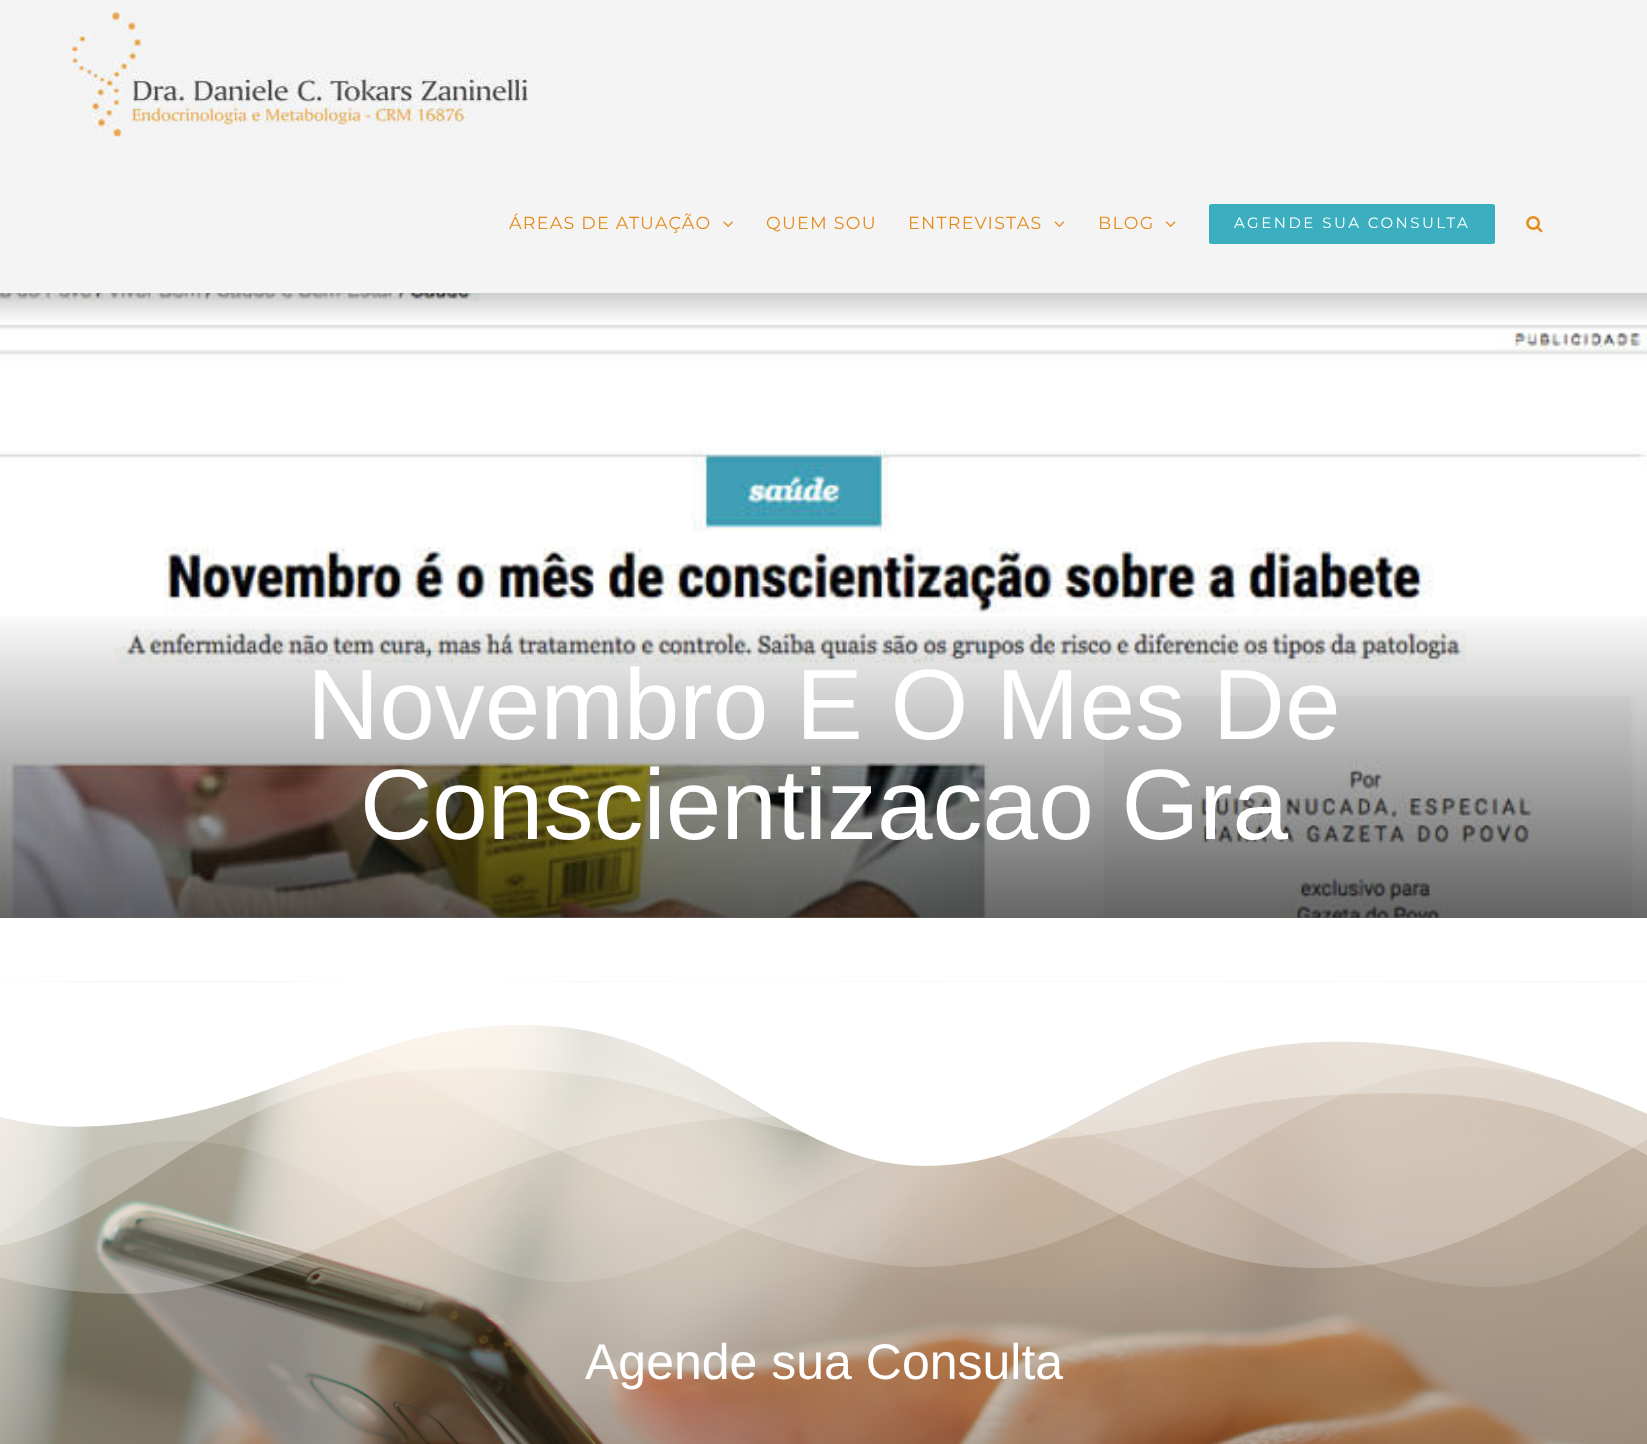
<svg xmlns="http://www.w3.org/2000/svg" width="1647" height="1444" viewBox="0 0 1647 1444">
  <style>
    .t1 { font: 100 17.5px Montserrat; letter-spacing: 1.25px; fill: #e48b1c; }
    .t2 { font: 100 15px Montserrat; letter-spacing: 2.5px; fill: #fff; }
    .t3 { font: 100px Liberation Sans; fill: #fff; }
    .t4 { font: 50px Liberation Sans; fill: #fff; }
  </style>
  <defs>
    <linearGradient id="g1" gradientUnits="userSpaceOnUse" x1="824" y1="292" x2="824" y2="918"><stop offset="0.5" stop-color="#000" stop-opacity="0"/><stop offset="1" stop-color="#000" stop-opacity="0.6"/></linearGradient>
  </defs>
  <rect width="100%" height="100%" fill="#fff"/>
  <rect x="0" y="0" width="1647" height="293" fill="#f4f4f4"/>
  <image x="72" y="12" width="456" height="125" href="images/1.png"/>
  <text x="509" y="229" class="t1">ÁREAS DE ATUAÇÃO</text>
  <image x="723" y="221" width="10" height="6" href="images/2.png"/>
  <text x="766" y="229" class="t1">QUEM SOU</text>
  <text x="908" y="229" class="t1">ENTREVISTAS</text>
  <image x="1054" y="221" width="11" height="6" href="images/3.png"/>
  <text x="1098" y="229" class="t1">BLOG</text>
  <image x="1165" y="221" width="11" height="6" href="images/4.png"/>
  <rect x="1209" y="204" width="286" height="40" rx="2.5" fill="#3bafbf"/>
  <text x="1234" y="228" class="t2">AGENDE SUA CONSULTA</text>
  <image x="1526" y="216" width="17" height="17" href="images/5.png"/>
  <image x="0" y="293" width="1647" height="625" href="images/6.png"/>
  <rect x="0" y="616" width="1647" height="302" fill="url(#g1)"/>
  <text x="307" y="739" class="t3">Novembro E O Mes De</text>
  <text x="360" y="839" class="t3">Conscientizacao Gra</text>
  <image x="0" y="981" width="1647" height="463" href="images/7.png"/>
  <image x="0" y="981" width="1647" height="313" href="images/8.png"/>
  <text x="585" y="1379" class="t4">Agende sua Consulta</text>
</svg>
